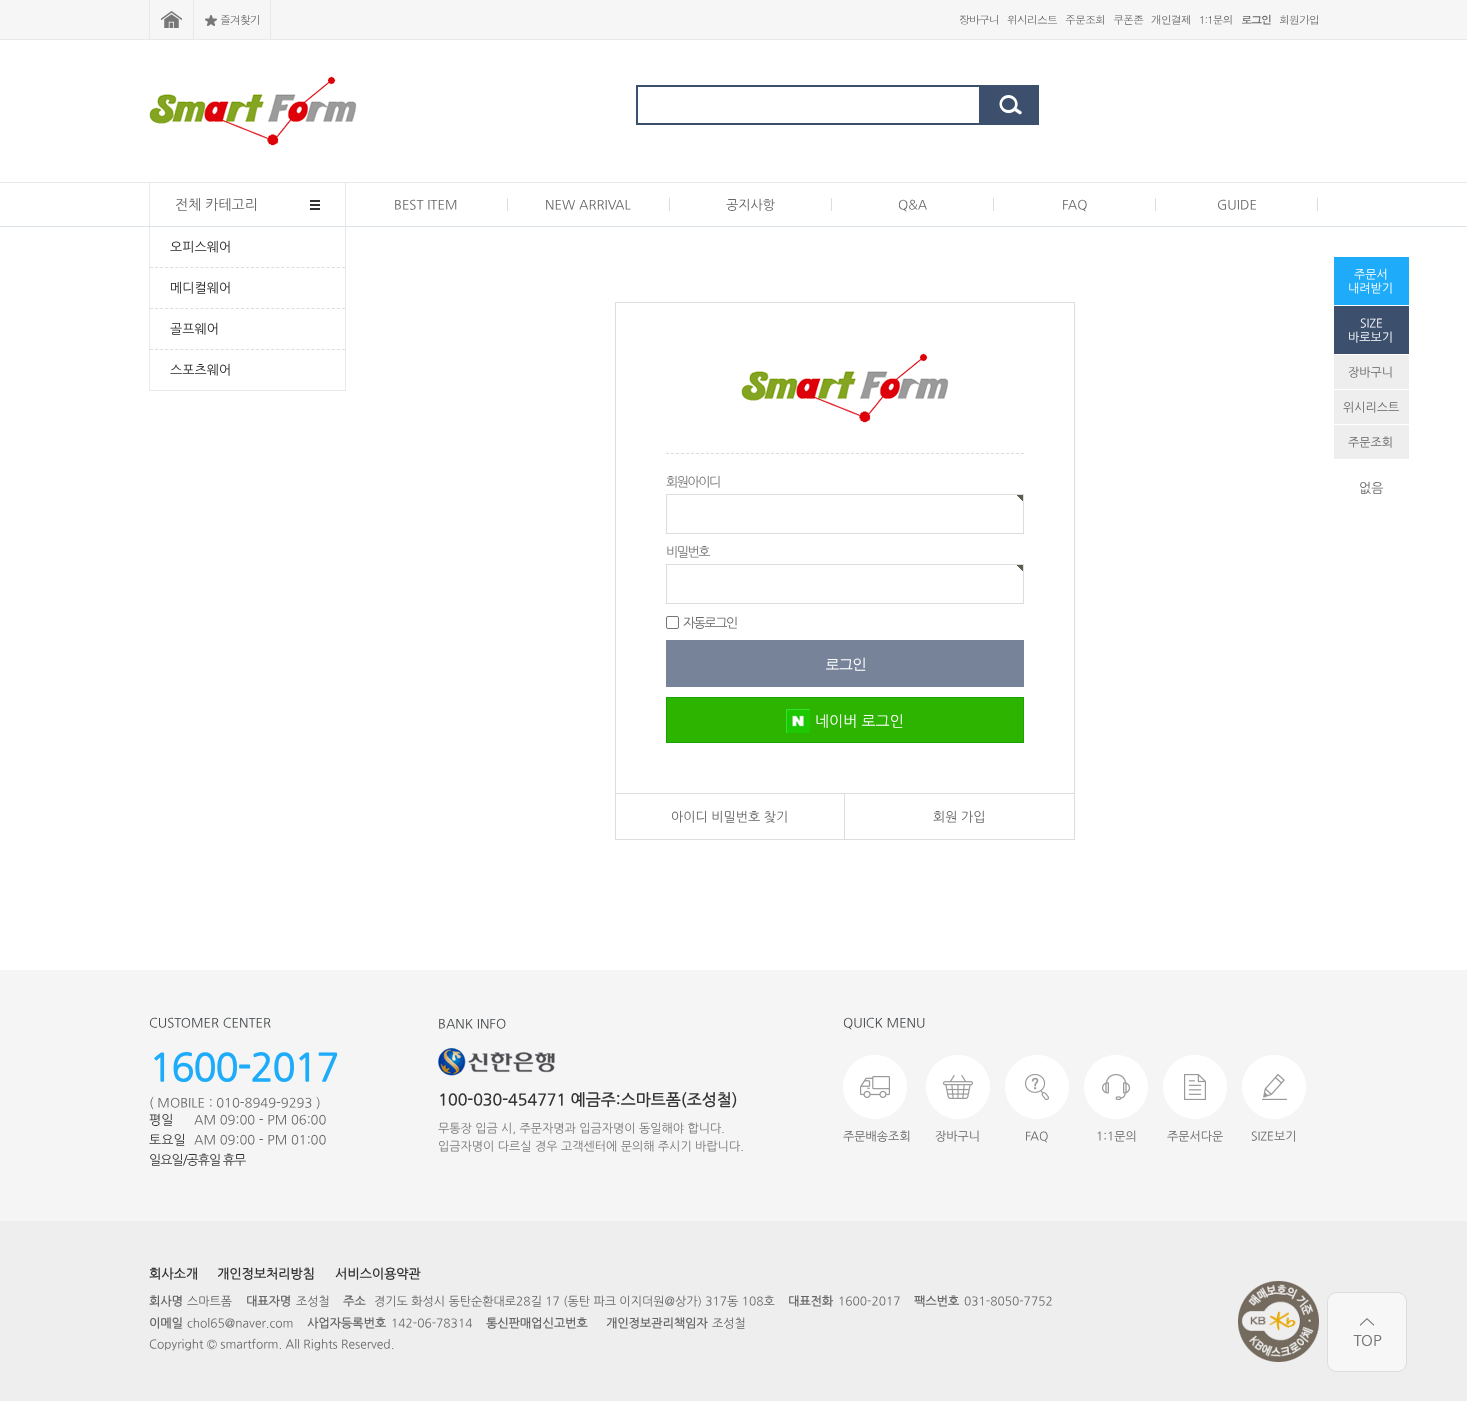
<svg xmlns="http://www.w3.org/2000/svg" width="1467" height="1402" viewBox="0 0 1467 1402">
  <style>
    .t1 { font: 11px Dotum; letter-spacing: -1px; fill: #666; }
    .t2 { font: bold 11px Dotum; letter-spacing: -1px; fill: #666; }
    .t3 { font: 14px NanumGothic; fill: #666; }
    .t4 { font: 13px NanumGothic; fill: #666; }
    .t5 { font: 13px NanumGothic; fill: #252525; }
    .t6 { font: 13px NanumGothic; letter-spacing: -1.5px; fill: #787878; }
    .t7 { font: 13px NanumGothic; letter-spacing: -1.5px; fill: #666; }
    .t8 { font: 500 15px WenQuanYi Zen Hei; letter-spacing: -1.5px; fill: #fff; }
    .t9 { font: 15px NanumGothic; fill: #fff; }
    .t10 { font: 12px NanumGothic; fill: #fff; }
    .t11 { font: 12px NanumGothic; fill: #666; }
    .t12 { font: 13px NanumGothic; fill: #43474a; }
    .t13 { font: bold 38px NanumGothic; letter-spacing: -1px; fill: #1eacfa; }
    .t14 { font: 13px NanumGothic; fill: #333; }
    .t15 { font: 13px NanumGothic; letter-spacing: -1px; fill: #333; }
    .t16 { font: bold 16px NanumGothic; fill: #333; }
    .t17 { font: 12px NanumGothic; fill: #787878; }
    .t18 { font: bold 13px NanumGothic; fill: #333; }
    .t19 { font: bold 12px NanumGothic; fill: #666; }
  </style>
  <rect width="100%" height="100%" fill="#fff"/>
  <rect x="0" y="226" width="1467" height="1" fill="#dde4e9"/>
  <rect x="0" y="0" width="1467" height="39" fill="#f6f6f6"/>
  <rect x="0" y="39" width="1467" height="1" fill="#e9e9e9"/>
  <rect x="149" y="0" width="1" height="39" fill="#e9e9e9"/>
  <rect x="193" y="0" width="1" height="39" fill="#e9e9e9"/>
  <image x="161" y="11" width="21" height="17" href="images/1.png"/>
  <rect x="270" y="0" width="1" height="39" fill="#e9e9e9"/>
  <image x="205" y="15" width="12" height="11" href="images/2.png"/>
  <text x="220" y="24" class="t1">즐겨찾기</text>
  <text x="959" y="24" class="t1">장바구니</text>
  <text x="1007" y="24" class="t1">위시리스트</text>
  <text x="1065" y="24" class="t1">주문조회</text>
  <text x="1113" y="24" class="t1">쿠폰존</text>
  <text x="1151" y="24" class="t1">개인결제</text>
  <text x="1199" y="24" class="t1">1:1문의</text>
  <text x="1241" y="24" class="t2">로그인</text>
  <text x="1279" y="24" class="t1">회원가입</text>
  <image x="149" y="76" width="208" height="70" href="images/3.png"/>
  <rect x="637" y="86" width="401" height="38" fill="none" stroke="#3c4f6d" stroke-width="2"/>
  <rect x="979" y="87" width="58" height="36" fill="#3c4f6d"/>
  <image x="999" y="95" width="23" height="20" href="images/4.png"/>
  <rect x="0" y="182" width="1467" height="1" fill="#e9e9e9"/>
  <image x="310" y="200" width="10" height="10" href="images/5.png"/>
  <rect x="345" y="183" width="1" height="43" fill="#e9e9e9"/>
  <rect x="149" y="183" width="1" height="43" fill="#e9e9e9"/>
  <text x="175" y="209" class="t3">전체 카테고리</text>
  <rect x="507" y="198" width="1" height="13" fill="#ddd"/>
  <text x="394" y="209" class="t4">BEST ITEM</text>
  <rect x="669" y="198" width="1" height="13" fill="#ddd"/>
  <text x="545" y="209" class="t4">NEW ARRIVAL</text>
  <rect x="831" y="198" width="1" height="13" fill="#ddd"/>
  <text x="726" y="209" class="t4">공지사항</text>
  <rect x="993" y="198" width="1" height="13" fill="#ddd"/>
  <text x="898" y="209" class="t4">Q&amp;A</text>
  <rect x="1155" y="198" width="1" height="13" fill="#ddd"/>
  <text x="1062" y="209" class="t4">FAQ</text>
  <rect x="1317" y="198" width="1" height="13" fill="#ddd"/>
  <text x="1217" y="209" class="t4">GUIDE</text>
  <rect x="345" y="227" width="1" height="164" fill="#e9e9e9"/>
  <rect x="149" y="390" width="197" height="1" fill="#e9e9e9"/>
  <rect x="149" y="227" width="1" height="164" fill="#e9e9e9"/>
  <path d="M150 267.5H345" fill="none" stroke="#ddd" stroke-dasharray="3 2.05"/>
  <text x="170" y="251" class="t5">오피스웨어</text>
  <path d="M150 308.5H345" fill="none" stroke="#ddd" stroke-dasharray="3 2.05"/>
  <text x="170" y="292" class="t5">메디컬웨어</text>
  <path d="M150 349.5H345" fill="none" stroke="#ddd" stroke-dasharray="3 2.05"/>
  <text x="170" y="333" class="t5">골프웨어</text>
  <text x="170" y="374" class="t5">스포츠웨어</text>
  <rect x="615" y="302" width="460" height="1" fill="#ddd"/>
  <rect x="1074" y="302" width="1" height="491" fill="#ddd"/>
  <rect x="615" y="302" width="1" height="491" fill="#ddd"/>
  <path d="M666 453.5H1024" fill="none" stroke="#ddd" stroke-dasharray="3 2"/>
  <image x="741" y="353" width="208" height="70" href="images/3.png"/>
  <text x="666" y="486" class="t6">회원아이디</text>
  <image x="1017" y="495" width="6" height="6" href="images/6.png"/>
  <rect x="666.5" y="494.5" width="357" height="39" fill="none" stroke="#ddd"/>
  <text x="666" y="556" class="t6">비밀번호</text>
  <image x="1017" y="565" width="6" height="6" href="images/6.png"/>
  <rect x="666.5" y="564.5" width="357" height="39" fill="none" stroke="#ddd"/>
  <rect x="666.5" y="616.5" width="12" height="12" rx="1.5" fill="none" stroke="#767676"/>
  <text x="683" y="627" class="t7">자동로그인</text>
  <rect x="666" y="640" width="358" height="47" fill="#768399"/>
  <text x="825" y="669" class="t8">로그인</text>
  <rect x="666.5" y="697.5" width="357" height="45" fill="#2db400" stroke="#18a400"/>
  <image x="786" y="709" width="24" height="24" href="images/7.png"/>
  <text x="815" y="726" class="t9">네이버 로그인</text>
  <rect x="615.5" y="793.5" width="459" height="46" fill="none" stroke="#ddd"/>
  <rect x="844" y="794" width="1" height="45" fill="#ddd"/>
  <text x="671" y="821" class="t4">아이디 비밀번호 찾기</text>
  <text x="933" y="821" class="t4">회원 가입</text>
  <rect x="1334" y="257" width="75" height="48" fill="#1eacfa"/>
  <text x="1354" y="278" class="t10">주문서</text>
  <text x="1348" y="292" class="t10">내려받기</text>
  <rect x="1334" y="306" width="75" height="48" fill="#3c4f6d"/>
  <text x="1360" y="327" class="t10">SIZE</text>
  <text x="1348" y="341" class="t10">바로보기</text>
  <rect x="1334" y="355" width="75" height="34" fill="#eee"/>
  <text x="1348" y="376" class="t11">장바구니</text>
  <rect x="1334" y="390" width="75" height="34" fill="#eee"/>
  <text x="1343" y="411" class="t11">위시리스트</text>
  <rect x="1334" y="425" width="75" height="34" fill="#eee"/>
  <text x="1348" y="446" class="t11">주문조회</text>
  <text x="1359" y="492" class="t4">없음</text>
  <rect x="0" y="970" width="1467" height="251" fill="#f5f5f5"/>
  <text x="149" y="1027" class="t12">CUSTOMER CENTER</text>
  <text x="149" y="1080" class="t13">1600-2017</text>
  <text x="149" y="1107" class="t4">( MOBILE : 010-8949-9293 )</text>
  <text x="149" y="1124" class="t14">평일</text>
  <text x="194" y="1124" class="t4">AM 09:00 - PM 06:00</text>
  <text x="149" y="1144" class="t14">토요일</text>
  <text x="194" y="1144" class="t4">AM 09:00 - PM 01:00</text>
  <text x="149" y="1164" class="t15">일요일/공휴일 휴무</text>
  <text x="438" y="1028" class="t12">BANK INFO</text>
  <image x="438" y="1048" width="117" height="28" href="images/8.png"/>
  <text x="438" y="1105" class="t16">100-030-454771 예금주:스마트폼(조성철)</text>
  <text x="438" y="1132" class="t17">무통장 입금 시, 주문자명과 입금자명이 동일해야 합니다.</text>
  <text x="438" y="1150" class="t17">입금자명이 다르실 경우 고객센터에 문의해 주시기 바랍니다.</text>
  <text x="843" y="1027" class="t12">QUICK MENU</text>
  <image x="843" y="1055" width="64" height="64" href="images/9.png"/>
  <text x="843" y="1140" class="t11">주문배송조회</text>
  <image x="926" y="1055" width="64" height="64" href="images/10.png"/>
  <text x="935" y="1140" class="t11">장바구니</text>
  <image x="1005" y="1055" width="64" height="64" href="images/11.png"/>
  <text x="1025" y="1140" class="t11">FAQ</text>
  <image x="1084" y="1055" width="64" height="64" href="images/12.png"/>
  <text x="1096" y="1140" class="t11">1:1문의</text>
  <image x="1163" y="1055" width="64" height="64" href="images/13.png"/>
  <text x="1167" y="1140" class="t11">주문서다운</text>
  <image x="1242" y="1055" width="64" height="64" href="images/14.png"/>
  <text x="1251" y="1140" class="t11">SIZE보기</text>
  <rect x="0" y="1221" width="1467" height="180" fill="#eee"/>
  <text x="149" y="1278" class="t18">회사소개</text>
  <text x="217" y="1278" class="t18">개인정보처리방침</text>
  <text x="335" y="1278" class="t18">서비스이용약관</text>
  <text x="149" y="1305" class="t19">회사명</text>
  <text x="187" y="1305" class="t11">스마트폼</text>
  <text x="246" y="1305" class="t19">대표자명</text>
  <text x="296" y="1305" class="t11">조성철</text>
  <text x="343" y="1305" class="t19">주소</text>
  <text x="374" y="1305" class="t11">경기도 화성시 동탄순환대로28길 17 (동탄 파크 이지더원@상가) 317동 108호</text>
  <text x="788" y="1305" class="t19">대표전화</text>
  <text x="838" y="1305" class="t11">1600-2017</text>
  <text x="914" y="1305" class="t19">팩스번호</text>
  <text x="964" y="1305" class="t11">031-8050-7752</text>
  <text x="149" y="1327" class="t19">이메일</text>
  <text x="187" y="1327" class="t11">chol65@naver.com</text>
  <text x="307" y="1327" class="t19">사업자등록번호</text>
  <text x="391" y="1327" class="t11">142-06-78314</text>
  <text x="486" y="1327" class="t19">통신판매업신고번호</text>
  <text x="606" y="1327" class="t19">개인정보관리책임자</text>
  <text x="712" y="1327" class="t11">조성철</text>
  <text x="149" y="1348" class="t11">Copyright © smartform. All Rights Reserved.</text>
  <image x="1238" y="1281" width="81" height="81" href="images/15.png"/>
  <image x="1327" y="1292" width="80" height="80" href="images/16.png"/>
</svg>
